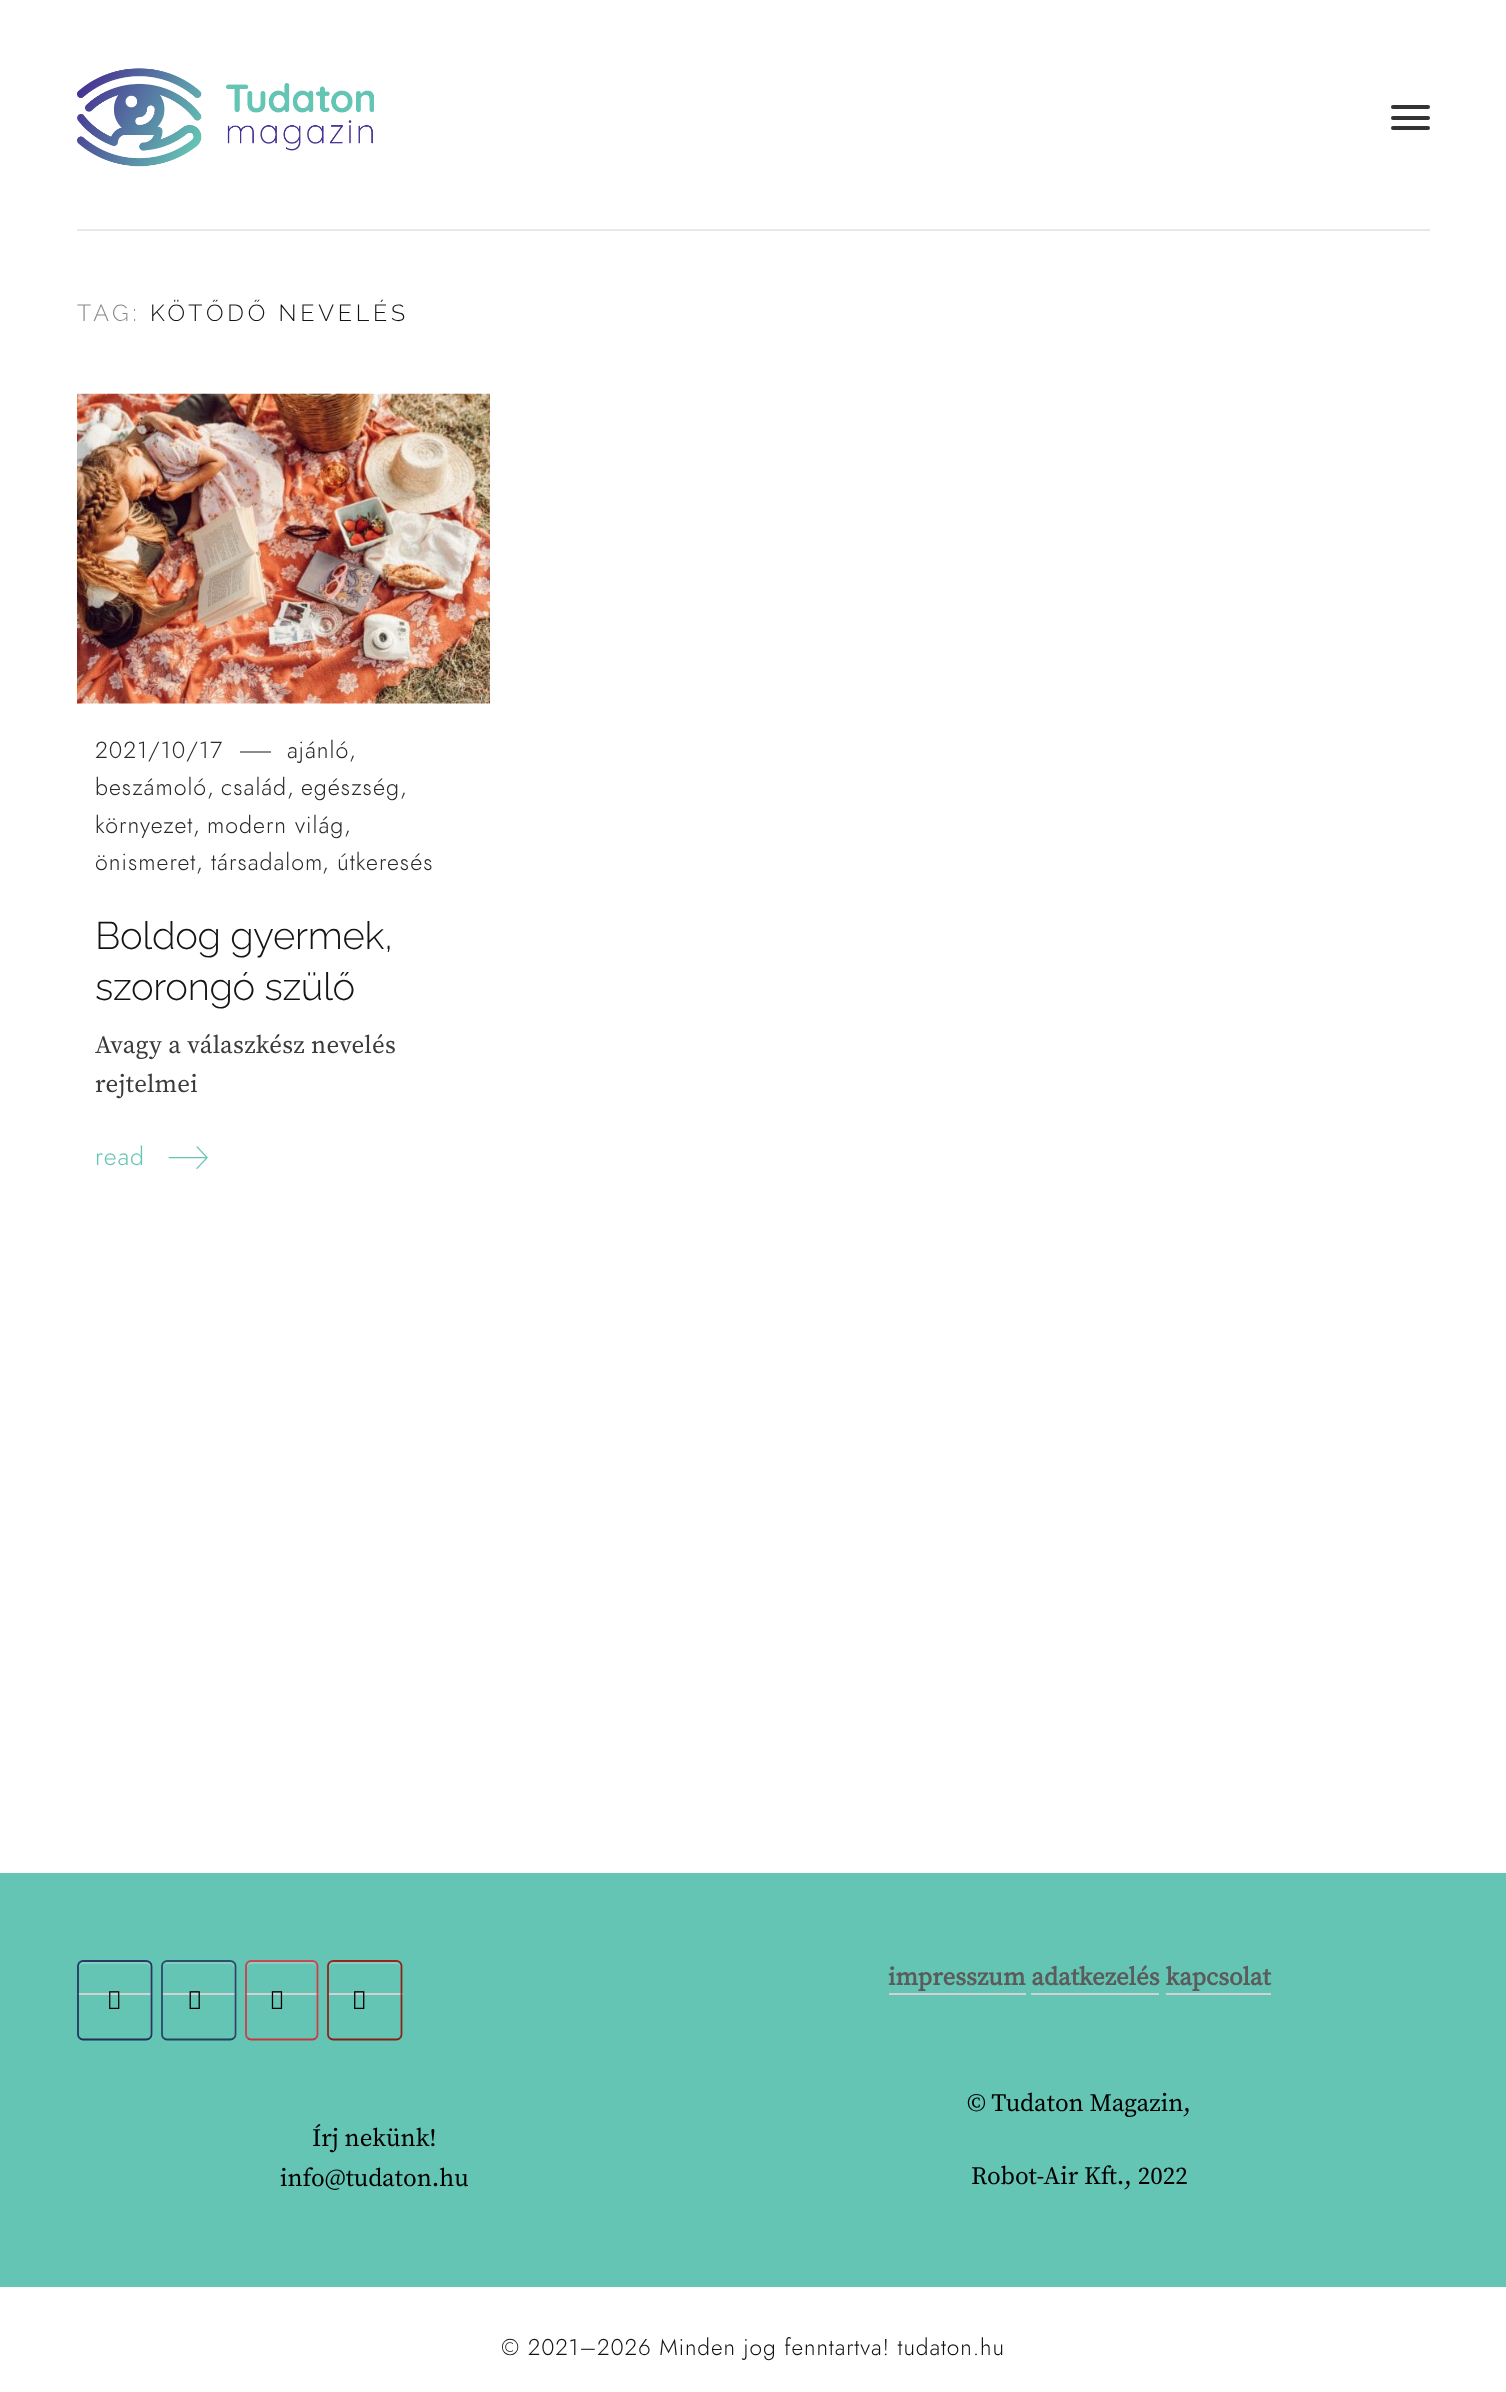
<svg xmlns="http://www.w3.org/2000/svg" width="1506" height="2392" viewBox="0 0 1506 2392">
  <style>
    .t1 { font: 100 23.25px Raleway; letter-spacing: 3.75px; fill: #8a8a8a; }
    .t2 { font: 100 23.25px Raleway; letter-spacing: 3.75px; fill: #141414; }
    .t3 { font: 300 23.25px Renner; letter-spacing: 1px; fill: #2b2b2b; }
    .t4 { font: 300 23.25px Renner; fill: #2b2b2b; }
    .t5 { font: 100 38.25px Raleway; letter-spacing: -0.3px; fill: #141414; }
    .t6 { font: 25px Source Serif Pro; letter-spacing: 0.25px; fill: #3b3b3b; }
    .t7 { font: 300 25px Renner; letter-spacing: 1px; fill: #65c5b4; }
    .t8 { font: 25px Source Serif Pro; fill: #000; }
    .t9 { font: bold 25px Source Serif Pro; fill: #5b5b5b; }
    .t10 { font: 300 22.75px Renner; letter-spacing: 0.9px; fill: #141414; }
  </style>
  <rect width="100%" height="100%" fill="#fff"/>
  <rect x="77" y="229" width="1353" height="2" fill="#e8e8e8"/>
  <image x="77" y="68" width="297" height="99" href="images/1.png"/>
  <rect x="1391" y="105" width="39" height="4" rx="2" fill="#333"/>
  <rect x="1391" y="116" width="39" height="4" rx="2" fill="#333"/>
  <rect x="1391" y="126" width="39" height="4" rx="2" fill="#333"/>
  <text x="77" y="321" class="t1">TAG:</text>
  <text x="150" y="321" class="t2">KÖTŐDŐ NEVELÉS</text>
  <image x="77" y="393" width="413" height="311" href="images/2.png"/>
  <rect x="240" y="751" width="31" height="2" fill="#8b8b8b"/>
  <text x="287" y="758" class="t3">ajánló</text>
  <text x="349" y="758" class="t4">,</text>
  <text x="95" y="795" class="t3">beszámoló</text>
  <text x="207" y="795" class="t4">,</text>
  <text x="221" y="795" class="t3">család</text>
  <text x="287" y="795" class="t4">,</text>
  <text x="301" y="795" class="t3">egészség</text>
  <text x="400" y="795" class="t4">,</text>
  <text x="95" y="833" class="t3">környezet</text>
  <text x="193" y="833" class="t4">,</text>
  <text x="207" y="833" class="t3">modern világ</text>
  <text x="344" y="833" class="t4">,</text>
  <text x="95" y="870" class="t3">önismeret</text>
  <text x="196" y="870" class="t4">,</text>
  <text x="211" y="870" class="t3">társadalom</text>
  <text x="322" y="870" class="t4">,</text>
  <text x="337" y="870" class="t3">útkeresés</text>
  <text x="95" y="758" class="t3">2021/10/17</text>
  <text x="95" y="949" class="t5">Boldog gyermek,</text>
  <text x="95" y="1000" class="t5">szorongó szülő</text>
  <text x="95" y="1053" class="t6">Avagy a válaszkész nevelés</text>
  <text x="95" y="1092" class="t6">rejtelmei</text>
  <text x="95" y="1165" class="t7">read</text>
  <image x="168" y="1146" width="40" height="23" href="images/3.png"/>
  <rect x="0" y="1873" width="1506" height="414" fill="#65c5b4"/>
  <rect x="77" y="1993" width="75" height="2" fill="#d2d2d2"/>
  <path d="M83 1964H146C148 1964 150 1966 150 1968V2036L149 2038C150 2038 151 2036 151 2035V1966C151 1964 149 1962 147 1962H83C81 1962 79 1964 79 1966V1968C79 1966 81 1964 83 1964Z" fill="#ffffff33"/>
  <path d="M79.5 1962.5C80.5 1961.5 82 1961 83 1961H146C147.5 1961 149 1961.5 150 1962.5" fill="none" stroke="#273b65" stroke-width="1.8"/>
  <path d="M150 1962.5C151 1963.5 151.5 1965 151.5 1966V2034.5C151.5 2035.5 151 2037 150 2038" fill="none" stroke="#25375e" stroke-width="1.8"/>
  <path d="M150 2038C149 2039 147.5 2039.5 146 2039.5H83C82 2039.5 80.5 2039 79.5 2038" fill="none" stroke="#203053" stroke-width="1.8"/>
  <path d="M79.5 2038C78.5 2037 78 2035.5 78 2034.5V1966C78 1965 78.5 1963.5 79.5 1962.5" fill="none" stroke="#25375e" stroke-width="1.8"/>
  <image x="109" y="1991" width="11" height="18" href="images/4.png"/>
  <rect x="161" y="1993" width="75" height="2" fill="#d2d2d2"/>
  <path d="M167 1964H230C232 1964 234 1966 234 1968V2036L233 2038C234 2038 235 2036 235 2035V1966C235 1964 233 1962 231 1962H167C165 1962 163 1964 163 1966V1968C163 1966 165 1964 167 1964Z" fill="#ffffff33"/>
  <path d="M163.5 1962.5C164.5 1961.5 166 1961 167 1961H230C231.5 1961 233 1961.5 234 1962.5" fill="none" stroke="#2a506c" stroke-width="1.8"/>
  <path d="M234 1962.5C235 1963.5 235.5 1965 235.5 1966V2034.5C235.5 2035.5 235 2037 234 2038" fill="none" stroke="#274a65" stroke-width="1.8"/>
  <path d="M234 2038C233 2039 231.5 2039.5 230 2039.5H167C166 2039.5 164.5 2039 163.5 2038" fill="none" stroke="#23425a" stroke-width="1.8"/>
  <path d="M163.5 2038C162.5 2037 162 2035.5 162 2034.5V1966C162 1965 162.5 1963.5 163.5 1962.5" fill="none" stroke="#274a65" stroke-width="1.8"/>
  <image x="189" y="1991" width="11" height="18" href="images/5.png"/>
  <rect x="245" y="1993" width="74" height="2" fill="#d2d2d2"/>
  <path d="M251 1964H312C315 1964 317 1966 317 1968C317 1959 310 1962 303 1962H261C254 1962 247 1959 247 1968C247 1966 249 1964 251 1964Z" fill="#84d1c3"/>
  <path d="M247.5 1962.5C248.5 1961.5 250 1961 251 1961H312.5C313.5 1961 315 1961.5 316 1962.5" fill="none" stroke="#cd4852" stroke-width="1.8"/>
  <path d="M316 1962.5C317 1963.5 317.5 1965 317.5 1966V2034.5C317.5 2035.5 317 2037 316 2038" fill="none" stroke="#cb404a" stroke-width="1.8"/>
  <path d="M316 2038C315 2039 313.5 2039.5 312.5 2039.5H251C250 2039.5 248.5 2039 247.5 2038" fill="none" stroke="#c53641" stroke-width="1.8"/>
  <path d="M247.5 2038C246.5 2037 246 2035.5 246 2034.5V1966C246 1965 246.5 1963.5 247.5 1962.5" fill="none" stroke="#cb404a" stroke-width="1.8"/>
  <image x="271" y="1991" width="12" height="18" href="images/6.png"/>
  <rect x="327" y="1993" width="76" height="2" fill="#d2d2d2"/>
  <path d="M333 1964H396C399 1964 401 1966 401 1968C401 1959 394 1962 386 1962H344C336 1962 329 1959 329 1968C329 1966 331 1964 333 1964Z" fill="#84d1c3"/>
  <path d="M329.5 1962.5C330.5 1961.5 332 1961 333.5 1961H396.5C397.5 1961 399 1961.5 400 1962.5" fill="none" stroke="#97261c" stroke-width="1.8"/>
  <path d="M400 1962.5C401 1963.5 401.5 1965 401.5 1966V2034.5C401.5 2035.5 401 2037 400 2038" fill="none" stroke="#8f241b" stroke-width="1.8"/>
  <path d="M400 2038C399 2039 397.5 2039.5 396.5 2039.5H333.5C332 2039.5 330.5 2039 329.5 2038" fill="none" stroke="#822118" stroke-width="1.8"/>
  <path d="M329.5 2038C328.5 2037 328 2035.5 328 2034.5V1966C328 1965 328.5 1963.5 329.5 1962.5" fill="none" stroke="#8f241b" stroke-width="1.8"/>
  <image x="354" y="1991" width="11" height="18" href="images/7.png"/>
  <text x="312" y="2146" class="t8">Írj nekünk!</text>
  <text x="280" y="2186" class="t8">info@tudaton.hu</text>
  <text x="888" y="1985" class="t9">impresszum adatkezelés kapcsolat</text>
  <rect x="889" y="1993" width="137" height="2" fill="#d2d2d2"/>
  <rect x="1031" y="1993" width="128" height="2" fill="#d2d2d2"/>
  <rect x="1166" y="1993" width="105" height="2" fill="#d2d2d2"/>
  <text x="967" y="2111" class="t8">© Tudaton Magazin,</text>
  <text x="971" y="2184" class="t8">Robot-Air Kft., 2022</text>
  <text x="501" y="2355" class="t10">© 2021–2026 Minden jog fenntartva! tudaton.hu</text>
</svg>
